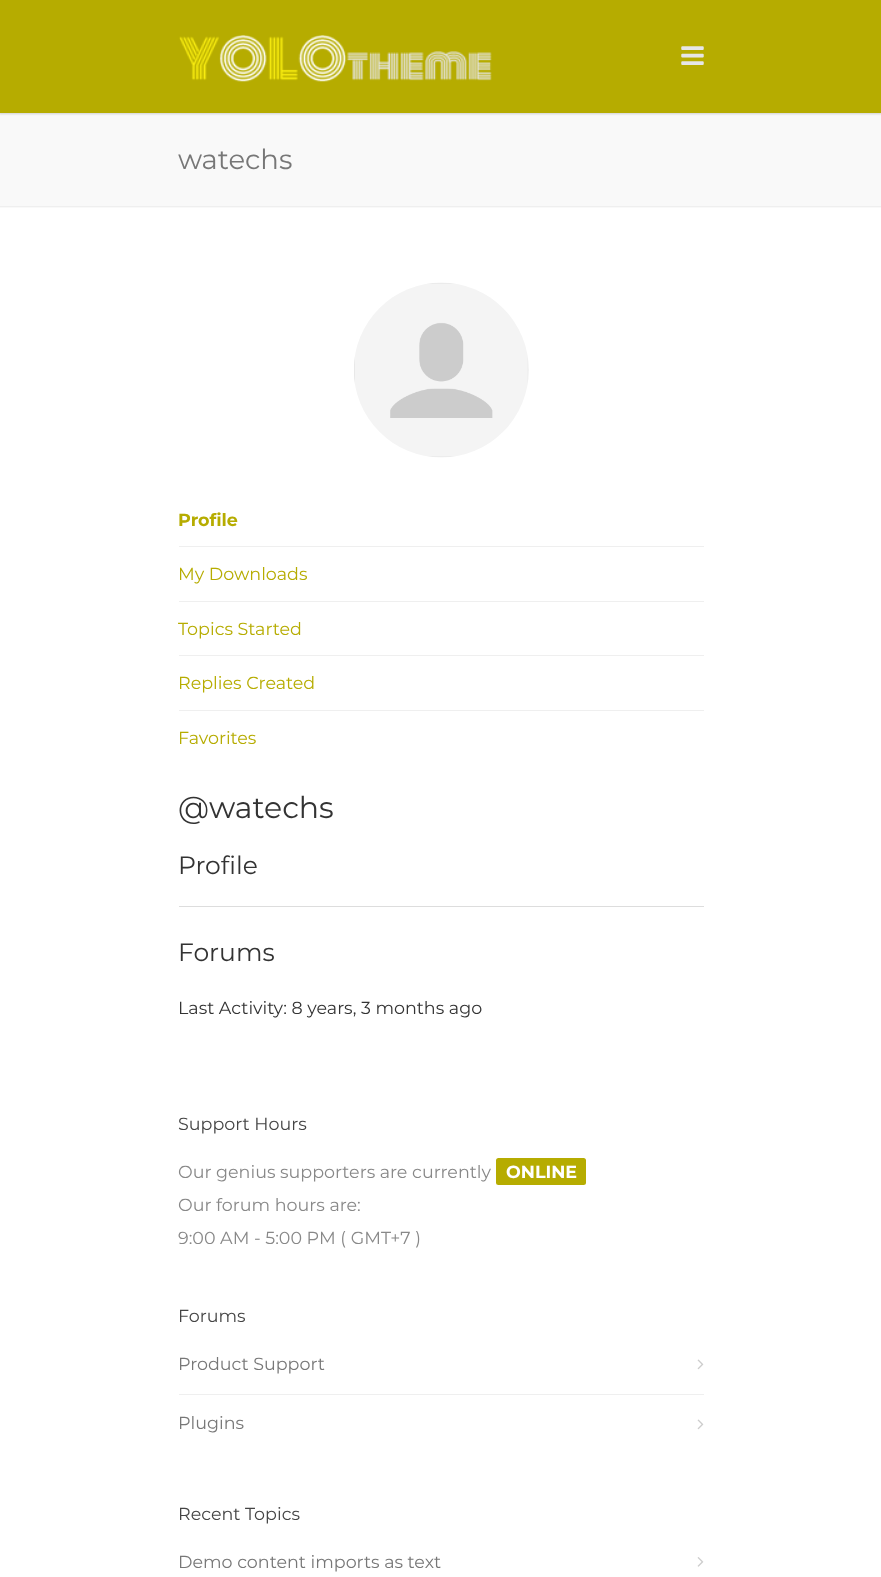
<svg xmlns="http://www.w3.org/2000/svg" width="881" height="1577" viewBox="0 0 881 1577">
  <style>
    .t1 { font: 27.5px Montserrat; fill: #777; }
    .t2 { font: bold 17.5px Montserrat; fill: #b6ac00; }
    .t3 { font: 17.5px Montserrat; fill: #b6ac00; }
    .t4 { font: 30px Montserrat; fill: #333; }
    .t5 { font: 25px Montserrat; fill: #333; }
    .t6 { font: 17.5px Montserrat; fill: #333; }
    .t7 { font: 17.5px Montserrat; fill: #444; }
    .t8 { font: 17.5px Montserrat; fill: #888; }
    .t9 { font: bold 17.5px Montserrat; fill: #fff; }
    .t10 { font: 17.5px Montserrat; fill: #777; }
  </style>
  <rect width="100%" height="100%" fill="#fff"/>
  <rect x="0" y="113" width="881" height="95" fill="#f9f9f9"/>
  <rect x="-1" y="-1" width="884" height="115" fill="#00000029" filter="blur(1px)"/>
  <rect x="0" y="0" width="881" height="113" fill="#b6ac00"/>
  <image x="179" y="35" width="313" height="47" href="images/1.png"/>
  <image x="681" y="46" width="23" height="19" href="images/2.png"/>
  <rect x="0" y="206" width="881" height="1" fill="#efefef"/>
  <text x="178" y="169" class="t1">watechs</text>
  <image x="354" y="282" width="175" height="176" href="images/3.png"/>
  <rect x="179" y="546" width="525" height="1" fill="#efefef"/>
  <text x="178" y="526" class="t2">Profile</text>
  <rect x="179" y="601" width="525" height="1" fill="#efefef"/>
  <text x="178" y="580" class="t3">My Downloads</text>
  <rect x="179" y="655" width="525" height="1" fill="#efefef"/>
  <text x="178" y="635" class="t3">Topics Started</text>
  <rect x="179" y="710" width="525" height="1" fill="#efefef"/>
  <text x="178" y="689" class="t3">Replies Created</text>
  <text x="178" y="744" class="t3">Favorites</text>
  <text x="178" y="818" class="t4">@watechs</text>
  <text x="178" y="874" class="t5">Profile</text>
  <rect x="179" y="906" width="525" height="1" fill="#ddd"/>
  <text x="178" y="961" class="t5">Forums</text>
  <text x="178" y="1014" class="t6">Last Activity: 8 years, 3 months ago</text>
  <text x="178" y="1130" class="t7">Support Hours</text>
  <text x="178" y="1178" class="t8">Our genius supporters are currently</text>
  <rect x="496" y="1158" width="90" height="27" rx="2.5" fill="#b6ac00"/>
  <text x="506" y="1178" class="t9">ONLINE</text>
  <text x="178" y="1211" class="t8">Our forum hours are:</text>
  <text x="178" y="1244" class="t8">9:00 AM - 5:00 PM ( GMT+7 )</text>
  <text x="178" y="1322" class="t7">Forums</text>
  <rect x="179" y="1394" width="525" height="1" fill="#efefef"/>
  <text x="178" y="1370" class="t10">Product Support</text>
  <image x="697" y="1359" width="7" height="11" href="images/4.png"/>
  <text x="178" y="1429" class="t10">Plugins</text>
  <image x="697" y="1419" width="7" height="11" href="images/4.png"/>
  <text x="178" y="1520" class="t7">Recent Topics</text>
  <text x="178" y="1568" class="t10">Demo content imports as text</text>
  <image x="697" y="1557" width="7" height="10" href="images/5.png"/>
</svg>
